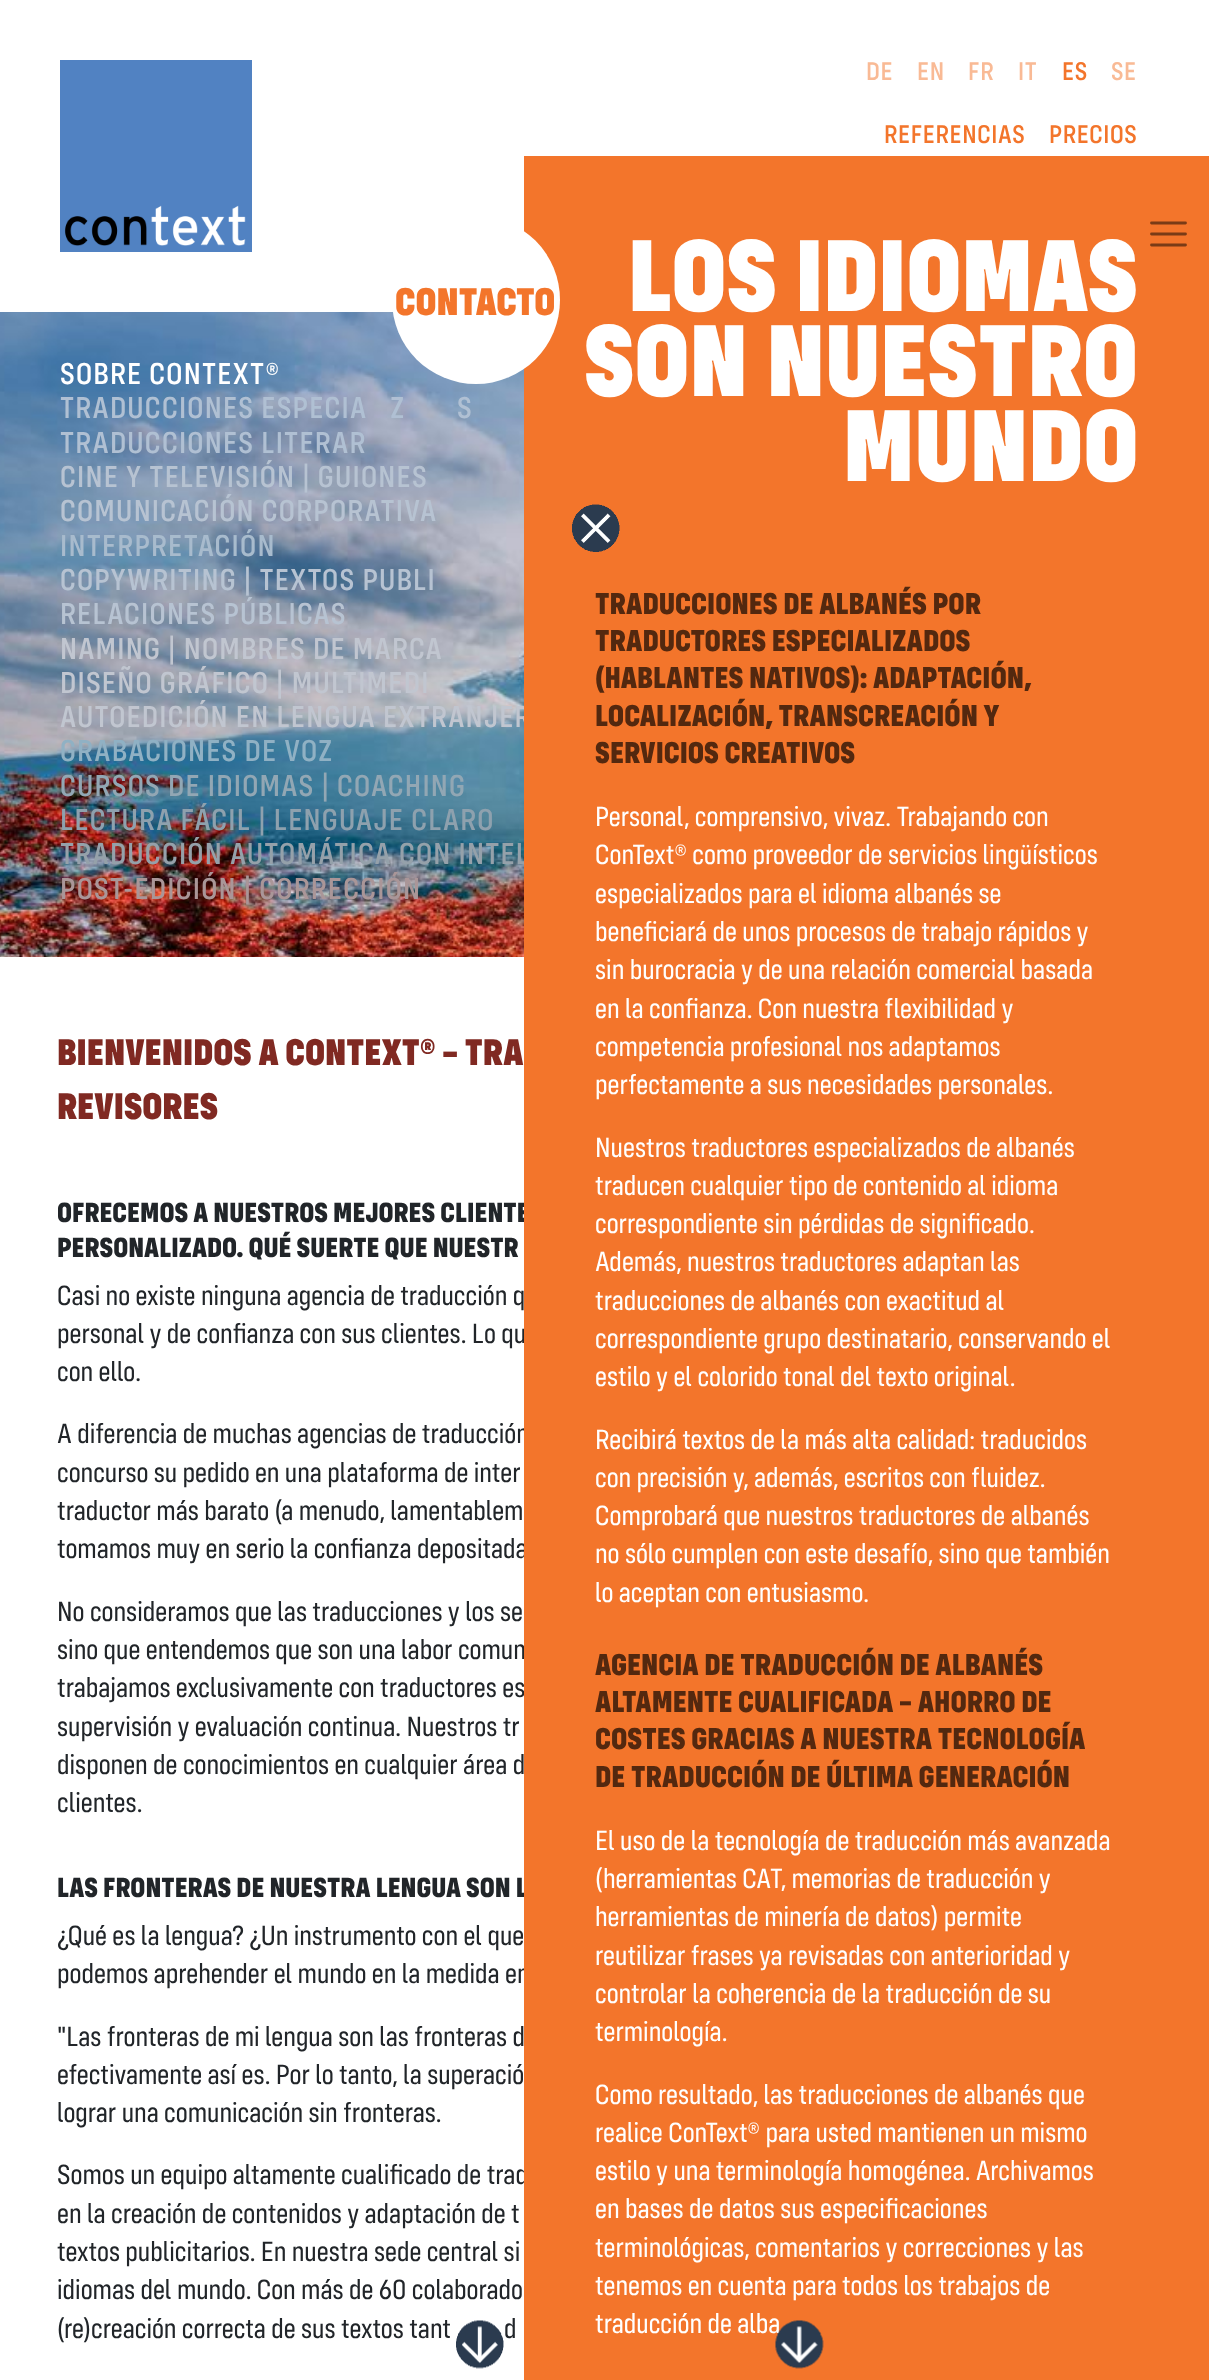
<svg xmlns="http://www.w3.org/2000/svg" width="1209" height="2380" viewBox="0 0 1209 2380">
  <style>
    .t1 { font: 500 26.5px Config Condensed; letter-spacing: 0.6px; fill: #f9ba95; }
    .t2 { font: 500 26.5px Config Condensed; letter-spacing: 0.6px; fill: #f3752b; }
    .t3 { font: 500 31.25px Config Condensed; letter-spacing: 1.2px; fill: #c1c6d0; }
    .t4 { font: 500 31.25px Config Condensed; letter-spacing: 1.2px; fill: #95a1aa; }
    .t5 { font: 800 28.75px Config Condensed; fill: #212529; }
    .t6 { font: 28.75px Config Condensed; fill: #212529; }
    .t7 { font: 900 40px Config Condensed; fill: #f3752b; }
    .t8 { font: 900 105.5px Config Condensed; fill: #fff; }
    .t9 { font: 500 31.25px Config Condensed; letter-spacing: 1.2px; fill: #fff; }
    .t10 { font: 500 31.25px Config Condensed; letter-spacing: 1.2px; fill: #b0c0d3; }
    .t11 { font: 500 31.25px Config Condensed; letter-spacing: 1.2px; fill: #b7c3d2; }
    .t12 { font: 500 31.25px Config Condensed; letter-spacing: 1.2px; fill: #a8bbcd; }
    .t13 { font: 500 31.25px Config Condensed; letter-spacing: 1.2px; fill: #90b1c4; }
    .t14 { font: 500 31.25px Config Condensed; letter-spacing: 1.2px; fill: #92a7b4; }
    .t15 { font: 500 31.25px Config Condensed; letter-spacing: 1.2px; fill: #8ea1ae; }
    .t16 { font: 500 31.25px Config Condensed; letter-spacing: 1.2px; fill: #aa9698; }
    .t17 { font: 900 38.4px Config Condensed; fill: #802922; }
    .t18 { font: 800 31.25px Config Condensed; fill: #53280f; }
    .t19 { font: 28.75px Config Condensed; fill: #fff; }
  </style>
  <rect width="100%" height="100%" fill="#fff"/>
  <image x="60" y="60" width="192" height="192" href="images/1.png"/>
  <text x="866" y="80" class="t1">DE</text>
  <text x="917" y="80" class="t1">EN</text>
  <text x="968" y="80" class="t1">FR</text>
  <text x="1018" y="80" class="t1">IT</text>
  <text x="1062" y="80" class="t2">ES</text>
  <text x="1111" y="80" class="t1">SE</text>
  <text x="884" y="143" class="t2">REFERENCIAS</text>
  <text x="1049" y="143" class="t2">PRECIOS</text>
  <image x="0" y="312" width="524" height="645" href="images/2.png"/>
  <rect x="524" y="156" width="613" height="156" fill="#f3752b"/>
  <text x="60" y="727" class="t3">AUTOEDICIÓN EN LENGUA EXTRANJER</text>
  <text x="60" y="864" class="t4">TRADUCCIÓN AUTOMÁTICA CON INTEL</text>
  <text x="57" y="1222" class="t5">OFRECEMOS A NUESTROS MEJORES CLIENTE</text>
  <text x="57" y="1343" class="t6">personal y de confianza con sus clientes. Lo qu</text>
  <text x="57" y="1443" class="t6">A diferencia de muchas agencias de traducción</text>
  <text x="57" y="1558" class="t6">tomamos muy en serio la confianza depositada</text>
  <text x="57" y="1659" class="t6">sino que entendemos que son una labor comun</text>
  <text x="57" y="1697" class="t6">trabajamos exclusivamente con traductores es</text>
  <text x="57" y="1897" class="t5">LAS FRONTERAS DE NUESTRA LENGUA SON L</text>
  <text x="57" y="1983" class="t6">podemos aprehender el mundo en la medida en</text>
  <text x="57" y="2184" class="t6">Somos un equipo altamente cualificado de trad</text>
  <rect x="524" y="312" width="613" height="2068" fill="#f3752b"/>
  <circle cx="476" cy="300" r="84" fill="#fff"/>
  <text x="395" y="315" class="t7">CONTACTO</text>
  <text x="628" y="311" class="t8">LOS IDIOMAS</text>
  <text x="584" y="396" class="t8">SON NUESTRO</text>
  <text x="843" y="481" class="t8">MUNDO</text>
  <rect x="1137" y="156" width="72" height="2224" fill="#f3752b"/>
  <path d="M1151.5 223H1185.5M1151.5 234H1185.5M1151.5 245H1185.5" fill="none" stroke="#7a3b16" stroke-width="2.8" stroke-linecap="round"/>
  <text x="60" y="384" class="t9">SOBRE CONTEXT®</text>
  <text x="60" y="418" class="t10">TRADUCCIONES ESPECIA</text>
  <text x="390" y="418" class="t10">Z</text>
  <text x="457" y="418" class="t10">S</text>
  <text x="60" y="453" class="t10">TRADUCCIONES LITERAR</text>
  <text x="60" y="487" class="t11">CINE Y TELEVISIÓN | GUIONES</text>
  <text x="60" y="521" class="t11">COMUNICACIÓN CORPORATIVA</text>
  <text x="60" y="556" class="t12">INTERPRETACIÓN</text>
  <text x="60" y="590" class="t11">COPYWRITING | TEXTOS PUBLI</text>
  <text x="60" y="624" class="t11">RELACIONES PÚBLICAS</text>
  <text x="60" y="659" class="t3">NAMING | NOMBRES DE MARCA</text>
  <text x="60" y="693" class="t3">DISEÑO GRÁFICO | MULTIMEDI</text>
  <text x="60" y="761" class="t13">GRABACIONES DE VOZ</text>
  <text x="60" y="796" class="t14">CURSOS DE IDIOMAS | COACHING</text>
  <text x="60" y="830" class="t15">LECTURA FÁCIL | LENGUAJE CLARO</text>
  <text x="60" y="899" class="t16">POST-EDICIÓN | CORRECCIÓN</text>
  <text x="57" y="1065" class="t17">BIENVENIDOS A CONTEXT® – TRA</text>
  <text x="57" y="1119" class="t17">REVISORES</text>
  <text x="57" y="1257" class="t5">PERSONALIZADO. QUÉ SUERTE QUE NUESTR</text>
  <text x="57" y="1305" class="t6">Casi no existe ninguna agencia de traducción q</text>
  <text x="57" y="1381" class="t6">con ello.</text>
  <text x="57" y="1482" class="t6">concurso su pedido en una plataforma de inter</text>
  <text x="57" y="1520" class="t6">traductor más barato (a menudo, lamentablem</text>
  <text x="57" y="1621" class="t6">No consideramos que las traducciones y los se</text>
  <text x="57" y="1736" class="t6">supervisión y evaluación continua. Nuestros tr</text>
  <text x="57" y="1774" class="t6">disponen de conocimientos en cualquier área d</text>
  <text x="57" y="1812" class="t6">clientes.</text>
  <text x="57" y="1945" class="t6">¿Qué es la lengua? ¿Un instrumento con el que</text>
  <text x="57" y="2046" class="t6">"Las fronteras de mi lengua son las fronteras d</text>
  <text x="57" y="2084" class="t6">efectivamente así es. Por lo tanto, la superació</text>
  <text x="57" y="2122" class="t6">lograr una comunicación sin fronteras.</text>
  <text x="57" y="2223" class="t6">en la creación de contenidos y adaptación de t</text>
  <text x="57" y="2261" class="t6">textos publicitarios. En nuestra sede central si</text>
  <text x="57" y="2299" class="t6">idiomas del mundo. Con más de 60 colaborado</text>
  <text x="57" y="2338" class="t6">(re)creación correcta de sus textos tant</text>
  <text x="504" y="2338" class="t6">d</text>
  <image x="456" y="2320" width="48" height="49" href="images/3.png"/>
  <image x="572" y="504" width="48" height="48" href="images/4.png"/>
  <text x="595" y="614" class="t18">TRADUCCIONES DE ALBANÉS POR</text>
  <text x="595" y="651" class="t18">TRADUCTORES ESPECIALIZADOS</text>
  <text x="595" y="688" class="t18">(HABLANTES NATIVOS): ADAPTACIÓN,</text>
  <text x="595" y="726" class="t18">LOCALIZACIÓN, TRANSCREACIÓN Y</text>
  <text x="595" y="763" class="t18">SERVICIOS CREATIVOS</text>
  <text x="595" y="826" class="t19">Personal, comprensivo, vivaz. Trabajando con</text>
  <text x="595" y="864" class="t19">ConText® como proveedor de servicios lingüísticos</text>
  <text x="595" y="903" class="t19">especializados para el idioma albanés se</text>
  <text x="595" y="941" class="t19">beneficiará de unos procesos de trabajo rápidos y</text>
  <text x="595" y="979" class="t19">sin burocracia y de una relación comercial basada</text>
  <text x="595" y="1018" class="t19">en la confianza. Con nuestra flexibilidad y</text>
  <text x="595" y="1056" class="t19">competencia profesional nos adaptamos</text>
  <text x="595" y="1094" class="t19">perfectamente a sus necesidades personales.</text>
  <text x="595" y="1157" class="t19">Nuestros traductores especializados de albanés</text>
  <text x="595" y="1195" class="t19">traducen cualquier tipo de contenido al idioma</text>
  <text x="595" y="1233" class="t19">correspondiente sin pérdidas de significado.</text>
  <text x="595" y="1271" class="t19">Además, nuestros traductores adaptan las</text>
  <text x="595" y="1310" class="t19">traducciones de albanés con exactitud al</text>
  <text x="595" y="1348" class="t19">correspondiente grupo destinatario, conservando el</text>
  <text x="595" y="1386" class="t19">estilo y el colorido tonal del texto original.</text>
  <text x="595" y="1449" class="t19">Recibirá textos de la más alta calidad: traducidos</text>
  <text x="595" y="1487" class="t19">con precisión y, además, escritos con fluidez.</text>
  <text x="595" y="1525" class="t19">Comprobará que nuestros traductores de albanés</text>
  <text x="595" y="1563" class="t19">no sólo cumplen con este desafío, sino que también</text>
  <text x="595" y="1602" class="t19">lo aceptan con entusiasmo.</text>
  <text x="595" y="1675" class="t18">AGENCIA DE TRADUCCIÓN DE ALBANÉS</text>
  <text x="595" y="1712" class="t18">ALTAMENTE CUALIFICADA – AHORRO DE</text>
  <text x="595" y="1749" class="t18">COSTES GRACIAS A NUESTRA TECNOLOGÍA</text>
  <text x="595" y="1787" class="t18">DE TRADUCCIÓN DE ÚLTIMA GENERACIÓN</text>
  <text x="595" y="1850" class="t19">El uso de la tecnología de traducción más avanzada</text>
  <text x="595" y="1888" class="t19">(herramientas CAT, memorias de traducción y</text>
  <text x="595" y="1926" class="t19">herramientas de minería de datos) permite</text>
  <text x="595" y="1965" class="t19">reutilizar frases ya revisadas con anterioridad y</text>
  <text x="595" y="2003" class="t19">controlar la coherencia de la traducción de su</text>
  <text x="595" y="2041" class="t19">terminología.</text>
  <text x="595" y="2104" class="t19">Como resultado, las traducciones de albanés que</text>
  <text x="595" y="2142" class="t19">realice ConText® para usted mantienen un mismo</text>
  <text x="595" y="2180" class="t19">estilo y una terminología homogénea. Archivamos</text>
  <text x="595" y="2218" class="t19">en bases de datos sus especificaciones</text>
  <text x="595" y="2257" class="t19">terminológicas, comentarios y correcciones y las</text>
  <text x="595" y="2295" class="t19">tenemos en cuenta para todos los trabajos de</text>
  <text x="595" y="2333" class="t19">traducción de alba</text>
  <image x="775" y="2320" width="49" height="49" href="images/5.png"/>
</svg>
